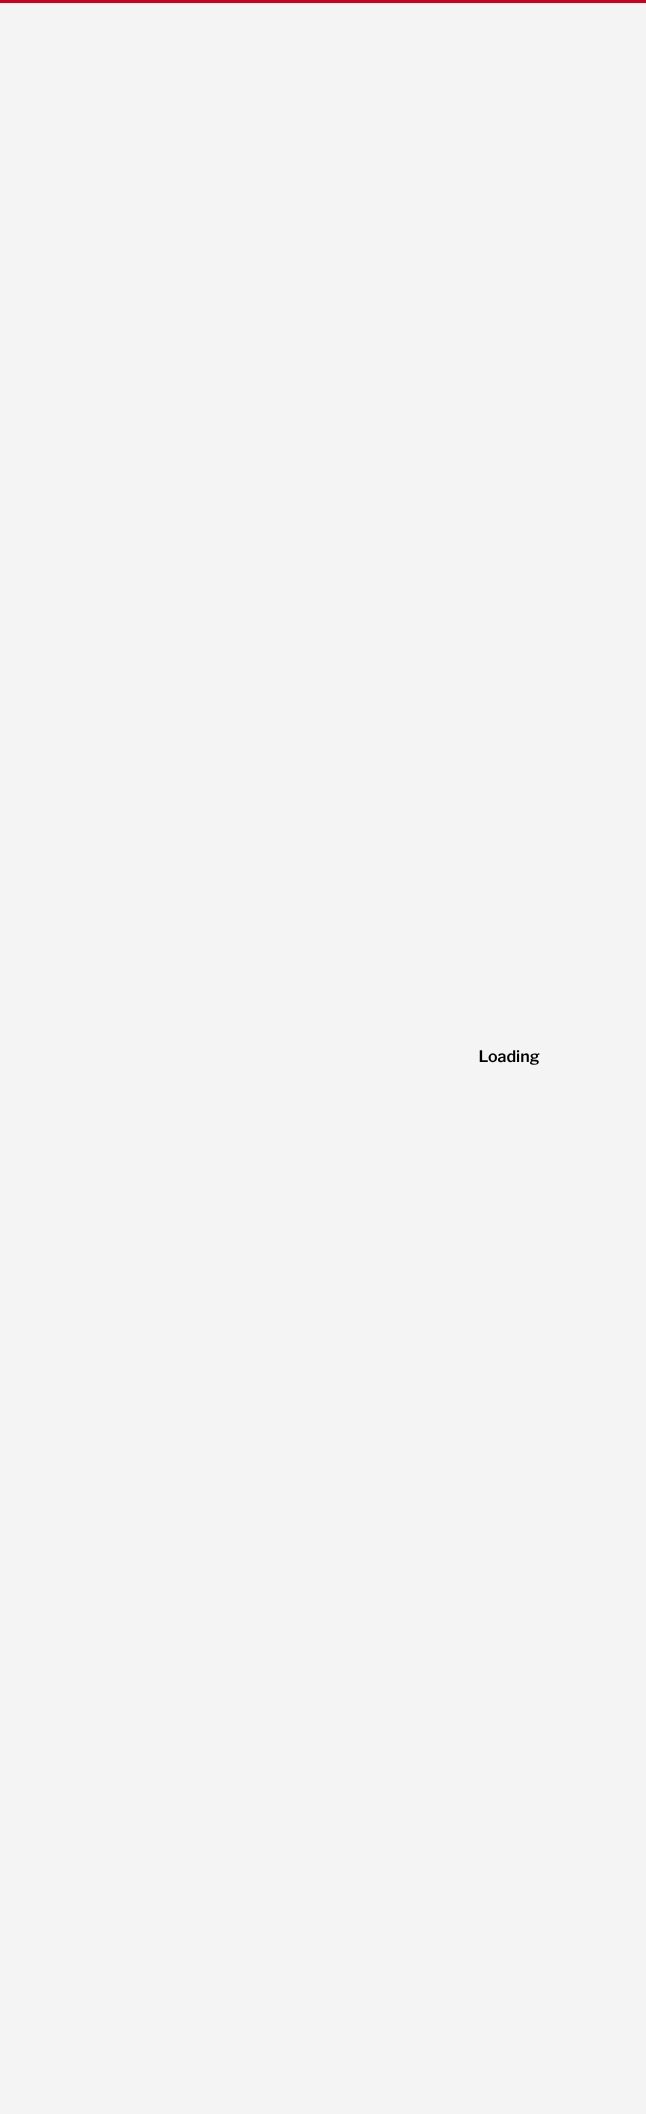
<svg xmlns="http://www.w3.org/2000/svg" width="646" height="2114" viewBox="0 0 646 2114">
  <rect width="100%" height="100%" fill="#fff"/>
  <image x="0" y="0" width="646" height="2114" href="images/1.png"/>
</svg>
